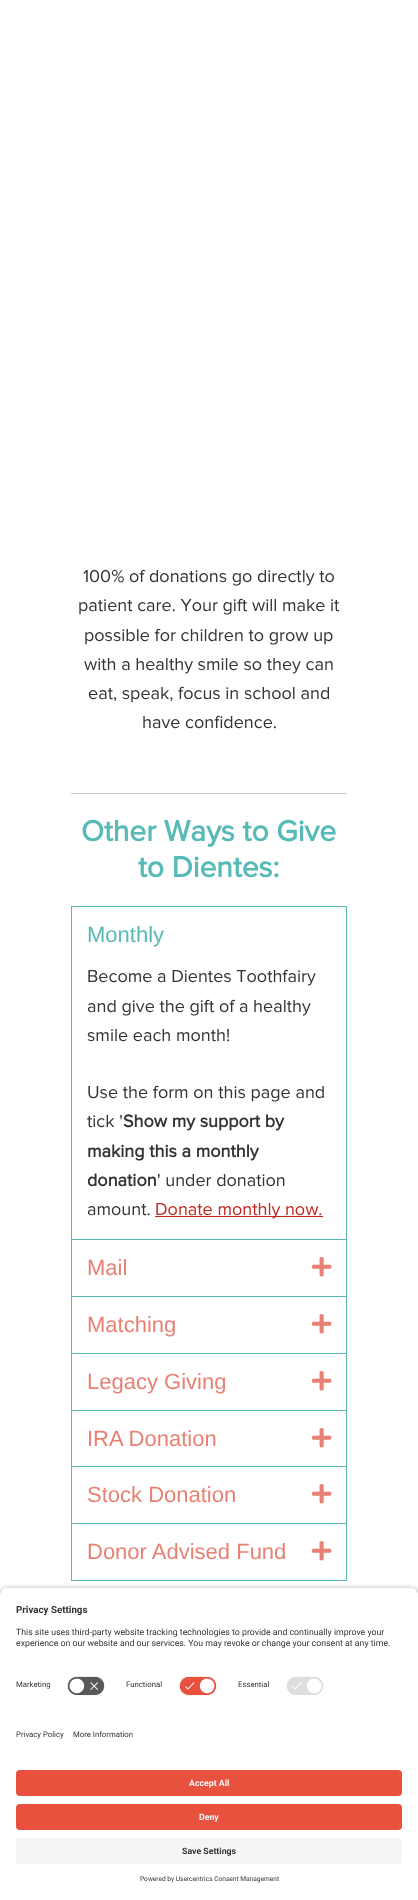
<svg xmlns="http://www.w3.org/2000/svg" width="418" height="1900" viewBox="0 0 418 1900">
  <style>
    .t1 { font: 18px Proxima Nova; fill: #333; }
    .t2 { font: bold 30px Proxima Nova; fill: #57bab7; }
    .t3 { font: 22px Liberation Sans; fill: #57bab7; }
    .t4 { font: bold 18px Proxima Nova; fill: #333; }
    .t5 { font: 18px Proxima Nova; fill: #c3251d; }
    .t6 { font: 22px Liberation Sans; fill: #e88174; }
    .t7 { font: bold 9.75px Roboto; fill: #333; }
    .t8 { font: 8.75px Roboto; fill: #333; }
    .t9 { font: 7.75px Roboto; fill: #333; }
    .t10 { font: bold 8.75px Roboto; fill: #fafafa; }
    .t11 { font: bold 8.75px Roboto; fill: #333; }
    .t12 { font: 6.6px Roboto; fill: #333; }
  </style>
  <rect width="100%" height="100%" fill="#fff"/>
  <text x="83" y="582" class="t1">100% of donations go directly to</text>
  <text x="78" y="611" class="t1">patient care. Your gift will make it</text>
  <text x="84" y="641" class="t1">possible for children to grow up</text>
  <text x="84" y="670" class="t1">with a healthy smile so they can</text>
  <text x="88" y="699" class="t1">eat, speak, focus in school and</text>
  <text x="142" y="728" class="t1">have confidence.</text>
  <rect x="71" y="793" width="276" height="1" fill="#ccc"/>
  <text x="81" y="841" class="t2">Other Ways to Give</text>
  <text x="138" y="877" class="t2">to Dientes:</text>
  <rect x="71.5" y="906.5" width="275" height="674" fill="none" stroke="#57bab7"/>
  <rect x="72" y="1239" width="274" height="1" fill="#57bab7"/>
  <text x="87" y="942" class="t3">Monthly</text>
  <text x="87" y="982" class="t1">Become a Dientes Toothfairy</text>
  <text x="87" y="1012" class="t1">and give the gift of a healthy</text>
  <text x="87" y="1041" class="t1">smile each month!</text>
  <text x="87" y="1098" class="t1">Use the form on this page and</text>
  <text x="87" y="1127" class="t1">tick '</text>
  <text x="123" y="1127" class="t4">Show my support by</text>
  <text x="87" y="1157" class="t4">making this a monthly</text>
  <text x="87" y="1186" class="t4">donation</text>
  <text x="157" y="1186" class="t1">' under donation</text>
  <text x="87" y="1215" class="t1">amount.</text>
  <rect x="155" y="1216" width="168" height="1" fill="#c3251d"/>
  <text x="155" y="1215" class="t5">Donate monthly now.</text>
  <rect x="72" y="1296" width="274" height="1" fill="#57bab7"/>
  <text x="87" y="1275" class="t6">Mail</text>
  <image x="312" y="1257" width="20" height="20" href="images/1.png"/>
  <rect x="72" y="1353" width="274" height="1" fill="#57bab7"/>
  <text x="87" y="1332" class="t6">Matching</text>
  <image x="312" y="1314" width="20" height="20" href="images/1.png"/>
  <rect x="72" y="1410" width="274" height="1" fill="#57bab7"/>
  <text x="87" y="1389" class="t6">Legacy Giving</text>
  <image x="312" y="1371" width="20" height="20" href="images/1.png"/>
  <rect x="72" y="1466" width="274" height="1" fill="#57bab7"/>
  <text x="87" y="1446" class="t6">IRA Donation</text>
  <image x="312" y="1428" width="20" height="20" href="images/1.png"/>
  <rect x="72" y="1523" width="274" height="1" fill="#57bab7"/>
  <text x="87" y="1502" class="t6">Stock Donation</text>
  <image x="312" y="1484" width="20" height="20" href="images/1.png"/>
  <text x="87" y="1559" class="t6">Donor Advised Fund</text>
  <image x="312" y="1541" width="20" height="20" href="images/1.png"/>
  <rect x="0" y="1591" width="418" height="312" rx="8" fill="#000000cc" filter="blur(3.5px)"/>
  <path d="M8 1588H410C414.5 1588 418 1591.5 418 1596V1713H0V1596C0 1591.5 3.5 1588 8 1588Z" fill="#fff"/>
  <path d="M8 1588H410C414.5 1588 418 1591.5 418 1596V1669H0V1596C0 1591.5 3.5 1588 8 1588Z" fill="#fff"/>
  <text x="16" y="1613" class="t7">Privacy Settings</text>
  <text x="16" y="1635" class="t8">This site uses third-party website tracking technologies to provide and continually improve your</text>
  <text x="16" y="1646" class="t8">experience on our website and our services. You may revoke or change your consent at any time.</text>
  <text x="16" y="1687" class="t9">Marketing</text>
  <image x="67" y="1676" width="38" height="20" href="images/2.png"/>
  <text x="126" y="1687" class="t9">Functional</text>
  <image x="179" y="1676" width="38" height="20" href="images/3.png"/>
  <text x="238" y="1687" class="t9">Essential</text>
  <image x="286" y="1676" width="38" height="19" href="images/4.png"/>
  <rect x="0" y="1713" width="418" height="187" fill="#fff"/>
  <text x="16" y="1737" class="t9">Privacy Policy</text>
  <text x="73" y="1737" class="t9">More Information</text>
  <rect x="16" y="1770" width="386" height="26" rx="4" fill="#e8513e"/>
  <text x="189" y="1786" class="t10">Accept All</text>
  <rect x="16" y="1804" width="386" height="26" rx="4" fill="#e8513e"/>
  <text x="199" y="1820" class="t10">Deny</text>
  <rect x="16" y="1838" width="386" height="26" rx="4" fill="#f5f5f5"/>
  <text x="182" y="1854" class="t11">Save Settings</text>
  <text x="140" y="1881" class="t12">Powered by Usercentrics Consent Management</text>
</svg>
